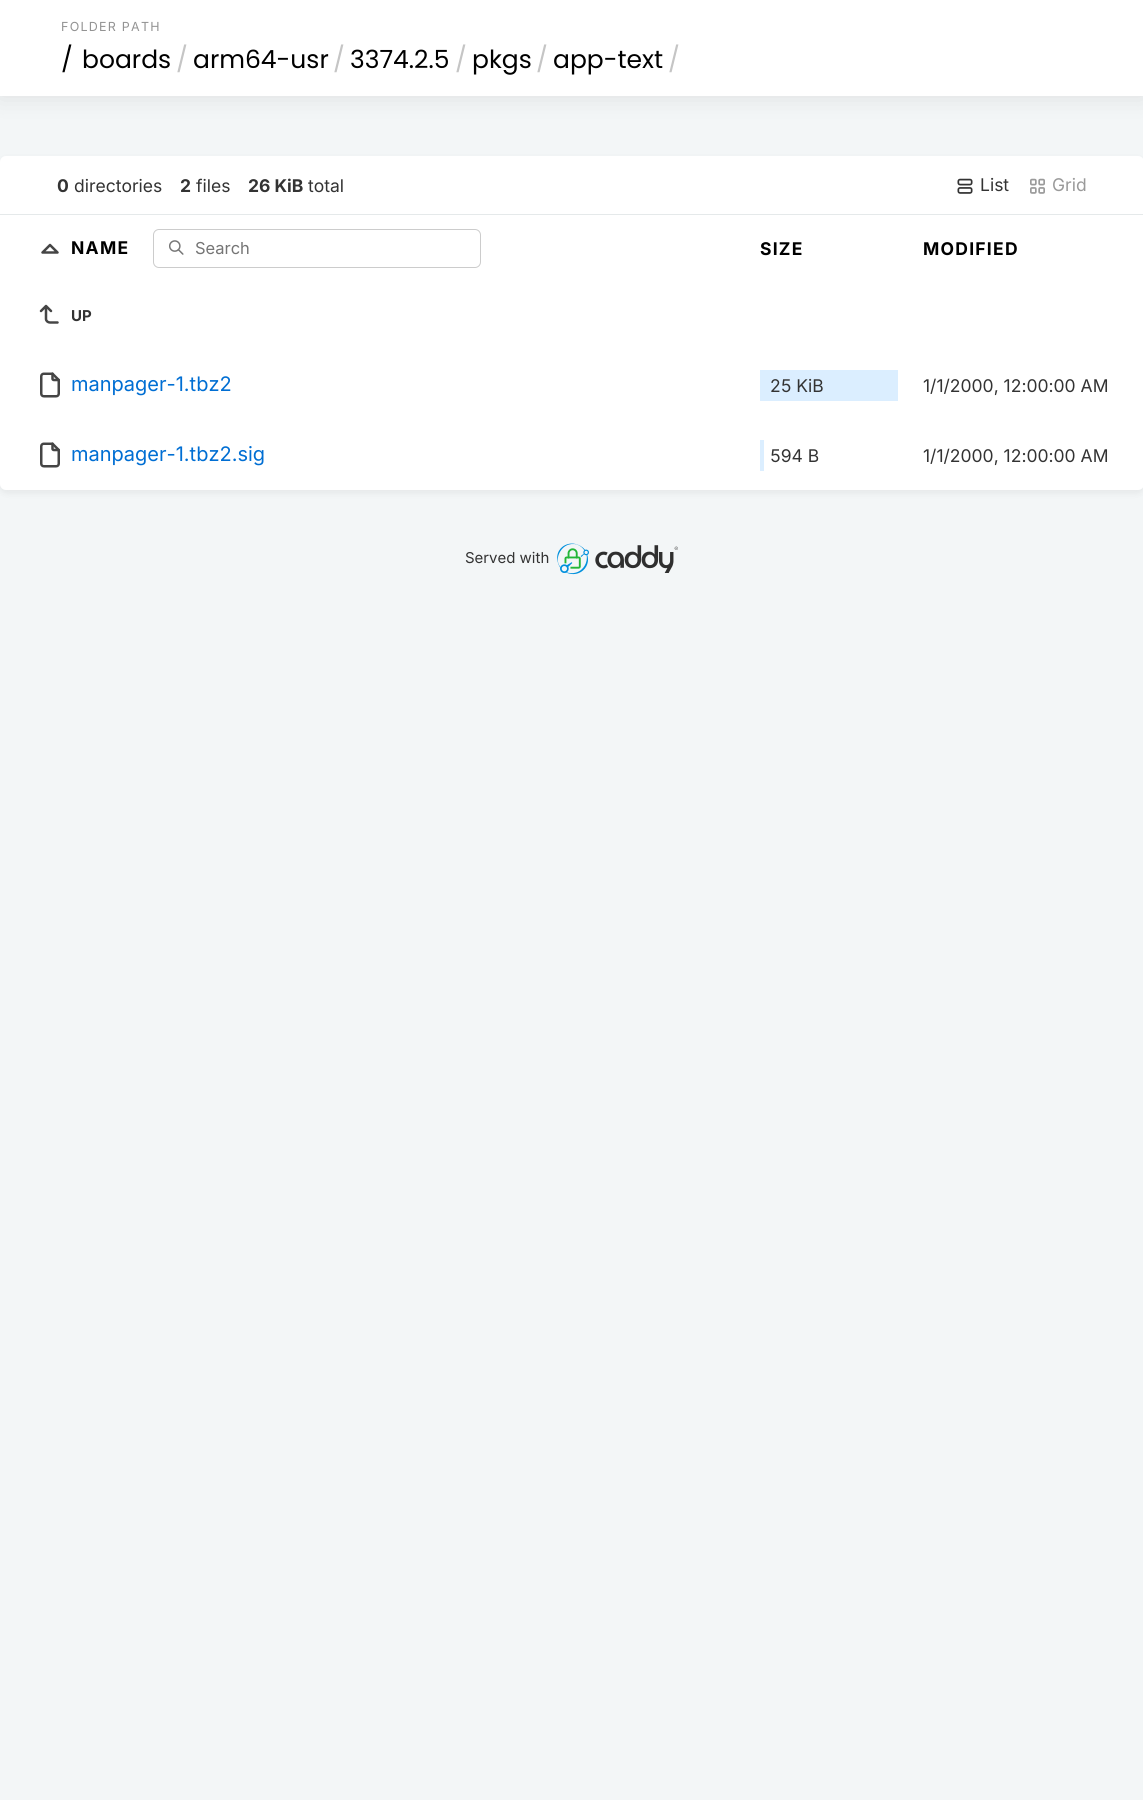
#include <cairo.h>
#include <math.h>
#include <stddef.h>


static void set_color(cairo_t *cr, unsigned color) {
    cairo_set_source_rgb(cr, (color >> 16) / 255.0, (color >> 8 & 255) / 255.0, (color & 255) / 255.0);
}

static void draw_text(cairo_t *cr, double x, double y, const char *s, const char *family, double size, int italic, int bold, unsigned color) {
    cairo_select_font_face(cr, family, italic ? CAIRO_FONT_SLANT_ITALIC : CAIRO_FONT_SLANT_NORMAL,
        bold ? CAIRO_FONT_WEIGHT_BOLD : CAIRO_FONT_WEIGHT_NORMAL);
    cairo_set_font_size(cr, size);
    set_color(cr, color);
    cairo_move_to(cr, x, y);
    cairo_show_text(cr, s);
}

static void draw_spaced(cairo_t *cr, double x, double y, const char *s, double letter, double word) {
    cairo_move_to(cr, x, y);
    while (*s) {
        char ch[5] = {0};
        int n = 0;
        do ch[n++] = *s++; while ((*s & 0xC0) == 0x80);
        cairo_show_text(cr, ch);
        cairo_rel_move_to(cr, letter + word * (*ch == ' '), 0);
    }
}

static void fill_rect(cairo_t *cr, double x, double y, double w, double h, unsigned color) {
    set_color(cr, color);
    cairo_rectangle(cr, x, y, w, h);
    cairo_fill(cr);
}

static void rounded_rect(cairo_t *cr, double x, double y, double w, double h, double r) {
    cairo_new_sub_path(cr);
    cairo_arc(cr, x + w - r, y + h - r, r, 0, M_PI / 2);
    cairo_arc(cr, x + r, y + h - r, r, M_PI / 2, M_PI);
    cairo_arc(cr, x + r, y + r, r, M_PI, 1.5 * M_PI);
    cairo_arc(cr, x + w - r, y + r, r, 1.5 * M_PI, 2 * M_PI);
    cairo_close_path(cr);
}

static void draw_shadow(cairo_t *cr, double x, double y, double w, double h, double r, double blur, double alpha) {
    cairo_push_group_with_content(cr, CAIRO_CONTENT_ALPHA);
    cairo_set_operator(cr, CAIRO_OPERATOR_SOURCE);
    for (int i = 15; i >= -15 && fmin(w, h) + blur * i / 3 > 0; i -= 2) {
        double e = blur * i / 6;
        cairo_set_source_rgba(cr, 0, 0, 0, alpha * erfc((i - 1) / 8.5) / 2);
        rounded_rect(cr, x - e, y - e, w + 2 * e, h + 2 * e, fmax(0, fmin(r + e + blur * .6, fmin(w, h) / 2 + e)));
        cairo_fill(cr);
    }
    cairo_pattern_t *soft = cairo_pop_group(cr);
    cairo_mask(cr, soft);
    cairo_pattern_destroy(soft);
}

static void draw_image(cairo_t *cr, const char *path, double x, double y, double w, double h) {
    cairo_surface_t *image = cairo_image_surface_create_from_png(path);
    cairo_save(cr);
    cairo_set_source_surface(cr, image, x, y);
    cairo_rectangle(cr, x, y, w, h);
    cairo_fill(cr);
    cairo_restore(cr);
    cairo_surface_destroy(image);
}

int main(void) {
    cairo_surface_t *surface = cairo_image_surface_create(CAIRO_FORMAT_RGB24, 1143, 1800);
    cairo_t *cr = cairo_create(surface);
    cairo_font_options_t *options = cairo_font_options_create();
    cairo_font_options_set_hint_metrics(options, CAIRO_HINT_METRICS_OFF);
    cairo_font_options_set_hint_style(options, CAIRO_HINT_STYLE_NONE);
    cairo_set_font_options(cr, options);
    cairo_set_miter_limit(cr, 4);
    set_color(cr, 0xF3F6F7);
    cairo_paint(cr);
    set_color(cr, 0x000000);
    draw_shadow(cr, 0, 0, 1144, 96, 0, 12.5, 0.1);
    fill_rect(cr, 0, 0, 1143, 96, 0xFFFFFF);
    cairo_select_font_face(cr, "Inter", CAIRO_FONT_SLANT_NORMAL, CAIRO_FONT_WEIGHT_NORMAL);
    cairo_set_font_size(cr, 12.5);
    set_color(cr, 0x939393);
    draw_spaced(cr, 61, 31, "FOLDER PATH", 1.25, 0);
    draw_text(cr, 61, 68, "/", "Poppins", 25, 0, 0, 0x000000);
    draw_text(cr, 82, 68, "boards", "Poppins", 25, 0, 0, 0x000000);
    draw_text(cr, 176, 68, "/", "Poppins", 25, 0, 0, 0xC5C5C5);
    draw_text(cr, 193, 68, "arm64-usr", "Poppins", 25, 0, 0, 0x000000);
    draw_text(cr, 333, 68, "/", "Poppins", 25, 0, 0, 0xC5C5C5);
    draw_text(cr, 350, 68, "3374.2.5", "Poppins", 25, 0, 0, 0x000000);
    draw_text(cr, 455, 68, "/", "Poppins", 25, 0, 0, 0xC5C5C5);
    draw_text(cr, 472, 68, "pkgs", "Poppins", 25, 0, 0, 0x000000);
    draw_text(cr, 536, 68, "/", "Poppins", 25, 0, 0, 0xC5C5C5);
    draw_text(cr, 553, 68, "app-text", "Poppins", 25, 0, 0, 0x000000);
    draw_text(cr, 668, 68, "/", "Poppins", 25, 0, 0, 0xC5C5C5);
    set_color(cr, 0x000000);
    draw_shadow(cr, -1, 158, 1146, 336, 8, 3, 0.05);
    set_color(cr, 0xFFFFFF);
    rounded_rect(cr, 0, 156, 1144, 334, 6);
    cairo_fill(cr);
    fill_rect(cr, 0, 214, 1143, 1, 0xE5E9EA);
    draw_text(cr, 57, 192, "0", "Inter", 17.5, 0, 1, 0x333333);
    draw_text(cr, 74, 192, "directories", "Inter", 17.5, 0, 0, 0x333333);
    draw_text(cr, 180, 192, "2", "Inter", 17.5, 0, 1, 0x333333);
    draw_text(cr, 196, 192, "files", "Inter", 17.5, 0, 0, 0x333333);
    draw_text(cr, 248, 192, "26 KiB", "Inter", 17.5, 0, 1, 0x333333);
    draw_text(cr, 308, 192, "total", "Inter", 17.5, 0, 0, 0x333333);
    draw_image(cr, "assets/img1.png", 957, 178, 16, 16);
    draw_text(cr, 980, 191, "List", "Inter", 17.5, 0, 0, 0x333333);
    draw_image(cr, "assets/img2.png", 1030, 178, 15, 16);
    draw_text(cr, 1052, 191, "Grid", "Inter", 17.5, 0, 0, 0x9A9A9A);
    cairo_new_path(cr);
    cairo_move_to(cr, 57.5, 252.5);
    cairo_line_to(cr, 50, 245);
    cairo_line_to(cr, 42.5, 252.5);
    cairo_line_to(cr, 57.5, 252.5);
    set_color(cr, 0x454545);
    cairo_set_line_width(cr, 2.5);
    cairo_set_line_cap(cr, CAIRO_LINE_CAP_ROUND);
    cairo_set_line_join(cr, CAIRO_LINE_JOIN_ROUND);
    cairo_stroke(cr);
    cairo_select_font_face(cr, "Inter", CAIRO_FONT_SLANT_NORMAL, CAIRO_FONT_WEIGHT_BOLD);
    set_color(cr, 0x000000);
    draw_spaced(cr, 71, 254, "NAME", 1.25, 0);
    draw_image(cr, "assets/img3.png", 169, 240, 15, 15);
    rounded_rect(cr, 153.5, 229.5, 327, 38, 5.5);
    set_color(cr, 0xCCCCCC);
    cairo_set_line_width(cr, 1);
    cairo_set_line_cap(cr, CAIRO_LINE_CAP_BUTT);
    cairo_set_line_join(cr, CAIRO_LINE_JOIN_MITER);
    cairo_stroke(cr);
    draw_text(cr, 195, 254, "Search", "Inter", 16.5, 0, 0, 0x757575);
    cairo_select_font_face(cr, "Inter", CAIRO_FONT_SLANT_NORMAL, CAIRO_FONT_WEIGHT_BOLD);
    cairo_set_font_size(cr, 17.5);
    set_color(cr, 0x000000);
    draw_spaced(cr, 760, 255, "SIZE", 1.25, 0);
    draw_spaced(cr, 923, 255, "MODIFIED", 1.25, 0);
    cairo_new_path(cr);
    cairo_move_to(cr, 57.5, 322.5);
    cairo_line_to(cr, 50, 322.5);
    cairo_curve_to(cr, 48, 322.5, 46, 321, 46, 319);
    cairo_line_to(cr, 46, 306);
    cairo_line_to(cr, 41, 311);
    cairo_move_to(cr, 51, 311);
    cairo_line_to(cr, 46, 306);
    set_color(cr, 0x454545);
    cairo_set_line_width(cr, 2.5);
    cairo_set_line_cap(cr, CAIRO_LINE_CAP_ROUND);
    cairo_set_line_join(cr, CAIRO_LINE_JOIN_ROUND);
    cairo_stroke(cr);
    draw_text(cr, 71, 321, "UP", "Inter", 15, 0, 1, 0x333333);
    draw_image(cr, "assets/img4.png", 40, 372, 20, 26);
    draw_text(cr, 71, 391, "manpager-1.tbz2", "Inter", 20, 0, 0, 0x006ED3);
    fill_rect(cr, 760, 370, 138, 31, 0xDBEEFF);
    draw_text(cr, 770, 392, "25 KiB", "Inter", 17.5, 0, 0, 0x333333);
    draw_text(cr, 923, 392, "1/1/2000, 12:00:00 AM", "Inter", 17.5, 0, 0, 0x333333);
    draw_image(cr, "assets/img4.png", 40, 442, 20, 26);
    draw_text(cr, 71, 461, "manpager-1.tbz2.sig", "Inter", 20, 0, 0, 0x006ED3);
    fill_rect(cr, 760, 440, 4, 31, 0xDBEEFF);
    draw_text(cr, 770, 462, "594 B", "Inter", 17.5, 0, 0, 0x333333);
    draw_text(cr, 923, 462, "1/1/2000, 12:00:00 AM", "Inter", 17.5, 0, 0, 0x333333);
    draw_text(cr, 465, 563, "Served with", "Inter", 15, 0, 0, 0x333333);
    draw_image(cr, "assets/img5.png", 557, 543, 121, 32);
    cairo_surface_write_to_png(surface, "output.png");
    cairo_font_options_destroy(options);
    cairo_destroy(cr);
    cairo_surface_destroy(surface);
    return 0;
}
